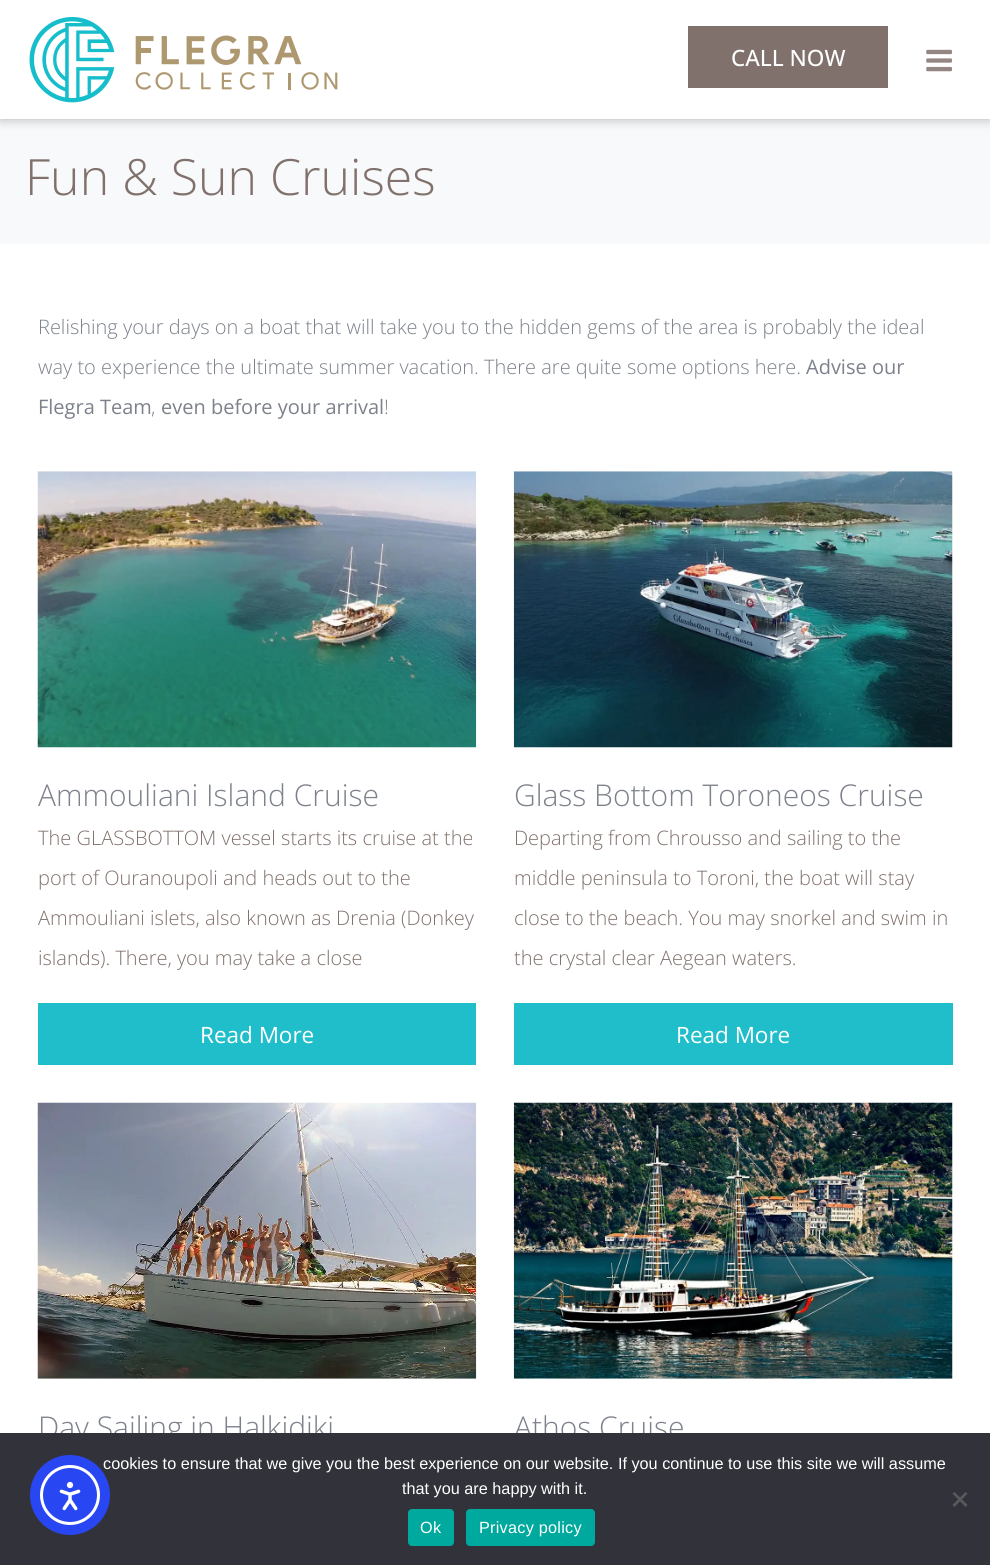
#include <cairo.h>
#include <math.h>
#include <stddef.h>


static void set_color(cairo_t *cr, unsigned color) {
    cairo_set_source_rgb(cr, (color >> 16) / 255.0, (color >> 8 & 255) / 255.0, (color & 255) / 255.0);
}

static void draw_text(cairo_t *cr, double x, double y, const char *s, const char *family, double size, int italic, int bold, unsigned color) {
    cairo_select_font_face(cr, family, italic ? CAIRO_FONT_SLANT_ITALIC : CAIRO_FONT_SLANT_NORMAL,
        bold ? CAIRO_FONT_WEIGHT_BOLD : CAIRO_FONT_WEIGHT_NORMAL);
    cairo_set_font_size(cr, size);
    set_color(cr, color);
    cairo_move_to(cr, x, y);
    cairo_show_text(cr, s);
}

static void draw_spaced(cairo_t *cr, double x, double y, const char *s, double letter, double word) {
    cairo_move_to(cr, x, y);
    while (*s) {
        char ch[5] = {0};
        int n = 0;
        do ch[n++] = *s++; while ((*s & 0xC0) == 0x80);
        cairo_show_text(cr, ch);
        cairo_rel_move_to(cr, letter + word * (*ch == ' '), 0);
    }
}

static void fill_rect(cairo_t *cr, double x, double y, double w, double h, unsigned color) {
    set_color(cr, color);
    cairo_rectangle(cr, x, y, w, h);
    cairo_fill(cr);
}

static void rounded_rect(cairo_t *cr, double x, double y, double w, double h, double r) {
    cairo_new_sub_path(cr);
    cairo_arc(cr, x + w - r, y + h - r, r, 0, M_PI / 2);
    cairo_arc(cr, x + r, y + h - r, r, M_PI / 2, M_PI);
    cairo_arc(cr, x + r, y + r, r, M_PI, 1.5 * M_PI);
    cairo_arc(cr, x + w - r, y + r, r, 1.5 * M_PI, 2 * M_PI);
    cairo_close_path(cr);
}

static void draw_shadow(cairo_t *cr, double x, double y, double w, double h, double r, double blur, double alpha) {
    cairo_push_group_with_content(cr, CAIRO_CONTENT_ALPHA);
    cairo_set_operator(cr, CAIRO_OPERATOR_SOURCE);
    for (int i = 15; i >= -15 && fmin(w, h) + blur * i / 3 > 0; i -= 2) {
        double e = blur * i / 6;
        cairo_set_source_rgba(cr, 0, 0, 0, alpha * erfc((i - 1) / 8.5) / 2);
        rounded_rect(cr, x - e, y - e, w + 2 * e, h + 2 * e, fmax(0, fmin(r + e + blur * .6, fmin(w, h) / 2 + e)));
        cairo_fill(cr);
    }
    cairo_pattern_t *soft = cairo_pop_group(cr);
    cairo_mask(cr, soft);
    cairo_pattern_destroy(soft);
}

static void draw_image(cairo_t *cr, const char *path, double x, double y, double w, double h) {
    cairo_surface_t *image = cairo_image_surface_create_from_png(path);
    cairo_save(cr);
    cairo_set_source_surface(cr, image, x, y);
    cairo_rectangle(cr, x, y, w, h);
    cairo_fill(cr);
    cairo_restore(cr);
    cairo_surface_destroy(image);
}

int main(void) {
    cairo_surface_t *surface = cairo_image_surface_create(CAIRO_FORMAT_RGB24, 990, 1565);
    cairo_t *cr = cairo_create(surface);
    cairo_font_options_t *options = cairo_font_options_create();
    cairo_font_options_set_hint_metrics(options, CAIRO_HINT_METRICS_OFF);
    cairo_font_options_set_hint_style(options, CAIRO_HINT_STYLE_NONE);
    cairo_set_font_options(cr, options);
    cairo_set_miter_limit(cr, 4);
    set_color(cr, 0xFFFFFF);
    cairo_paint(cr);
    fill_rect(cr, 0, 119, 990, 125, 0xF8F9FA);
    set_color(cr, 0x000000);
    draw_shadow(cr, 0, 0, 990, 119, 0, 6, 0.29);
    fill_rect(cr, 0, 0, 990, 119, 0xFFFFFF);
    draw_image(cr, "assets/img1.png", 29, 17, 309, 86);
    fill_rect(cr, 688, 26, 200, 62, 0x81716C);
    draw_text(cr, 731, 66, "CALL NOW", "Open Sans Medium", 22.5, 0, 0, 0xFFFFFF);
    draw_image(cr, "assets/img2.png", 926, 49, 26, 23);
    draw_text(cr, 25, 195, "Fun & Sun Cruises", "Open Sans Light", 50, 0, 0, 0x81716C);
    draw_text(cr, 38, 334, "Relishing your days on a boat that will take you to the hidden gems of the area is probably the ideal", "Open Sans Light", 20, 0, 0, 0x7C818B);
    draw_text(cr, 38, 374, "way to experience the ultimate summer vacation. There are quite some options here.", "Open Sans Light", 20, 0, 0, 0x7C818B);
    draw_text(cr, 806, 374, "Advise our", "Open Sans", 20, 0, 0, 0x7C818B);
    draw_text(cr, 38, 414, "Flegra Team", "Open Sans", 20, 0, 0, 0x7C818B);
    draw_text(cr, 151, 414, ",", "Open Sans Light", 20, 0, 0, 0x7C818B);
    draw_text(cr, 161, 414, "even before your arrival", "Open Sans", 20, 0, 0, 0x7C818B);
    draw_text(cr, 384, 414, "!", "Open Sans Light", 20, 0, 0, 0x7C818B);
    draw_image(cr, "assets/img3.png", 37, 471, 440, 277);
    draw_text(cr, 38, 806, "Ammouliani Island Cruise", "Open Sans Light", 30, 0, 0, 0x7C818B);
    draw_text(cr, 38, 845, "The GLASSBOTTOM vessel starts its cruise at the", "Open Sans Light", 20, 0, 0, 0x81716C);
    draw_text(cr, 38, 885, "port of Ouranoupoli and heads out to the", "Open Sans Light", 20, 0, 0, 0x81716C);
    draw_text(cr, 38, 925, "Ammouliani islets, also known as Drenia (Donkey", "Open Sans Light", 20, 0, 0, 0x81716C);
    draw_text(cr, 38, 965, "islands). There, you may take a close", "Open Sans Light", 20, 0, 0, 0x81716C);
    fill_rect(cr, 38, 1003, 438, 62, 0x20BECB);
    draw_text(cr, 200, 1043, "Read More", "Open Sans", 22.5, 0, 0, 0xFFFFFF);
    draw_image(cr, "assets/img4.png", 513, 471, 440, 277);
    draw_text(cr, 514, 806, "Glass Bottom Toroneos Cruise", "Open Sans Light", 30, 0, 0, 0x7C818B);
    draw_text(cr, 514, 845, "Departing from Chrousso and sailing to the", "Open Sans Light", 20, 0, 0, 0x81716C);
    draw_text(cr, 514, 885, "middle peninsula to Toroni, the boat will stay", "Open Sans Light", 20, 0, 0, 0x81716C);
    draw_text(cr, 514, 925, "close to the beach. You may snorkel and swim in", "Open Sans Light", 20, 0, 0, 0x81716C);
    draw_text(cr, 514, 965, "the crystal clear Aegean waters.", "Open Sans Light", 20, 0, 0, 0x81716C);
    fill_rect(cr, 514, 1003, 439, 62, 0x20BECB);
    draw_text(cr, 676, 1043, "Read More", "Open Sans", 22.5, 0, 0, 0xFFFFFF);
    draw_image(cr, "assets/img5.png", 37, 1102, 440, 277);
    draw_text(cr, 38, 1438, "Day Sailing in Halkidiki", "Open Sans Light", 30, 0, 0, 0x7C818B);
    draw_image(cr, "assets/img6.png", 513, 1102, 440, 277);
    draw_text(cr, 514, 1438, "Athos Cruise", "Open Sans Light", 30, 0, 0, 0x7C818B);
    fill_rect(cr, 0, 1433, 990, 132, 0x32323A);
    draw_text(cr, 103, 1469, "cookies to ensure that we give you the best experience on our website. If you continue to use this site we will assume", "Liberation Sans", 16.25, 0, 0, 0xFFFFFF);
    set_color(cr, 0x2847F3);
    cairo_new_path(cr);
    cairo_arc(cr, 70, 1495, 40, 0, 2 * M_PI);
    cairo_fill(cr);
    cairo_arc(cr, 70, 1495, 28.5, 0, 2 * M_PI);
    set_color(cr, 0xFFFFFF);
    cairo_set_line_width(cr, 3);
    cairo_stroke(cr);
    draw_image(cr, "assets/img7.png", 59, 1481, 22, 30);
    draw_text(cr, 402, 1494, "that you are happy with it.", "Liberation Sans", 16.25, 0, 0, 0xFFFFFF);
    set_color(cr, 0x59595D);
    cairo_new_path(cr);
    cairo_move_to(cr, 965.5, 1492);
    cairo_line_to(cr, 967.5, 1493.5);
    cairo_line_to(cr, 954.5, 1507);
    cairo_line_to(cr, 952.5, 1505);
    cairo_close_path(cr);
    cairo_fill(cr);
    cairo_new_path(cr);
    cairo_move_to(cr, 952.5, 1493.5);
    cairo_line_to(cr, 954.5, 1492);
    cairo_line_to(cr, 967.5, 1505);
    cairo_line_to(cr, 965.5, 1507);
    cairo_close_path(cr);
    cairo_fill(cr);
    set_color(cr, 0x00A99D);
    rounded_rect(cr, 408, 1509, 46, 37, 4);
    cairo_fill(cr);
    set_color(cr, 0xFFFFFF);
    draw_spaced(cr, 420, 1533, "Ok", 0.25, 0);
    set_color(cr, 0x00A99D);
    rounded_rect(cr, 466, 1509, 129, 37, 4);
    cairo_fill(cr);
    set_color(cr, 0xFFFFFF);
    draw_spaced(cr, 479, 1533, "Privacy policy", 0.25, 0);
    cairo_surface_write_to_png(surface, "output.png");
    cairo_font_options_destroy(options);
    cairo_destroy(cr);
    cairo_surface_destroy(surface);
    return 0;
}
